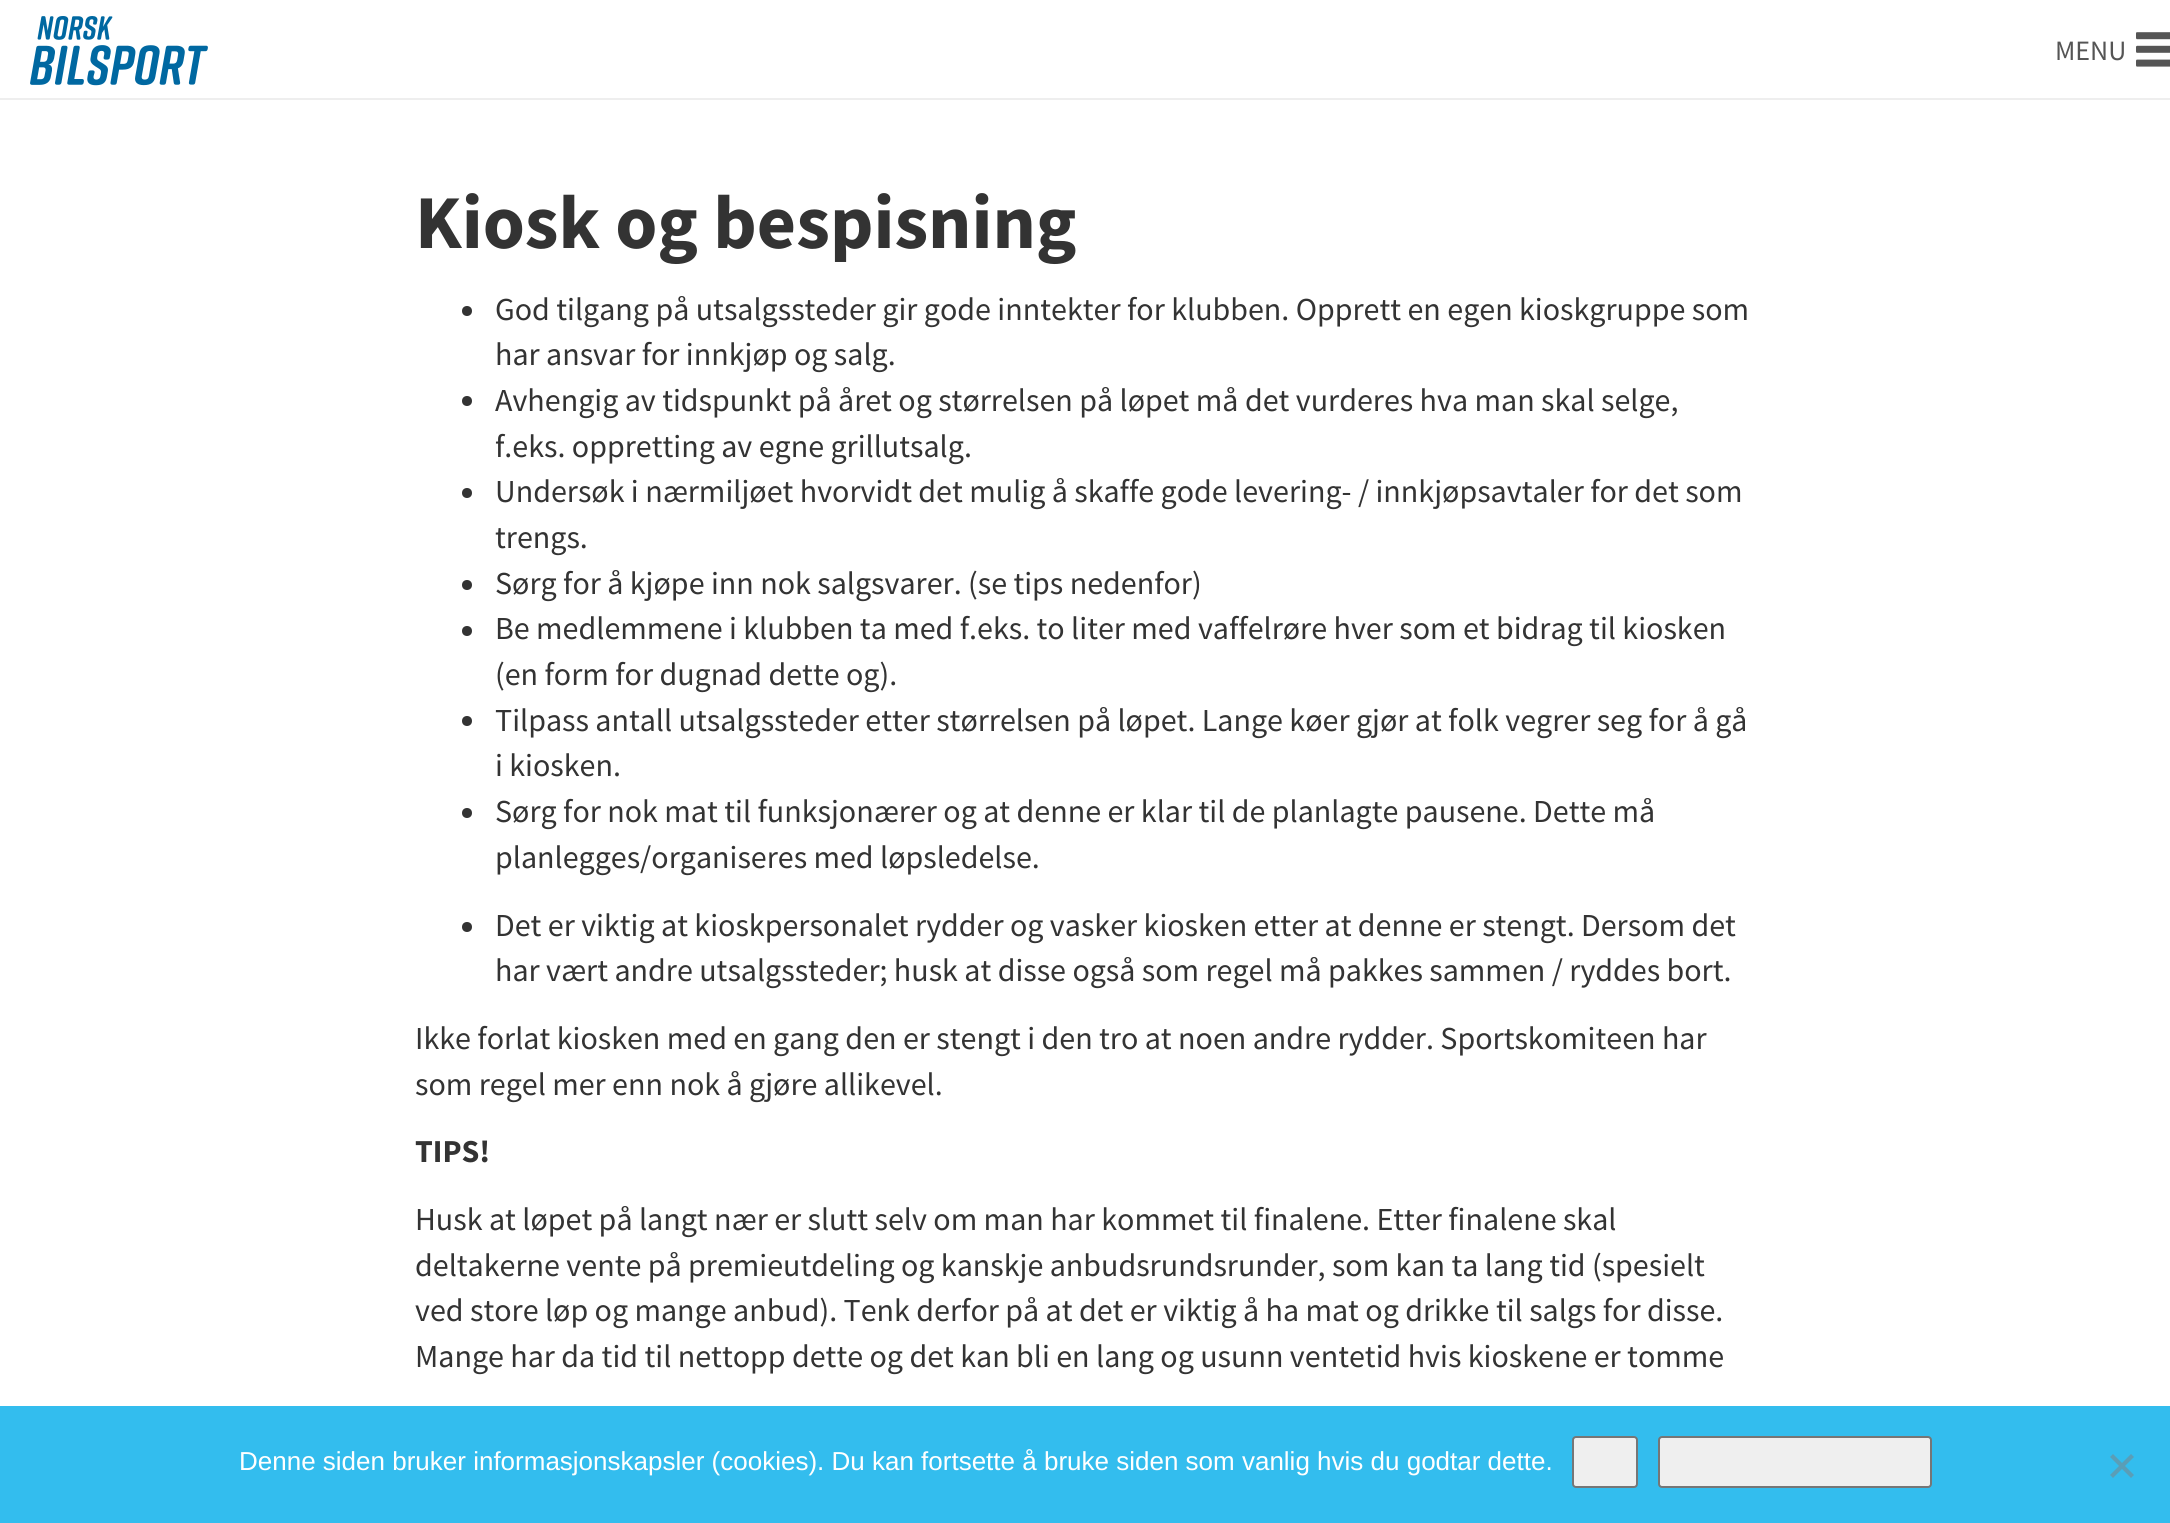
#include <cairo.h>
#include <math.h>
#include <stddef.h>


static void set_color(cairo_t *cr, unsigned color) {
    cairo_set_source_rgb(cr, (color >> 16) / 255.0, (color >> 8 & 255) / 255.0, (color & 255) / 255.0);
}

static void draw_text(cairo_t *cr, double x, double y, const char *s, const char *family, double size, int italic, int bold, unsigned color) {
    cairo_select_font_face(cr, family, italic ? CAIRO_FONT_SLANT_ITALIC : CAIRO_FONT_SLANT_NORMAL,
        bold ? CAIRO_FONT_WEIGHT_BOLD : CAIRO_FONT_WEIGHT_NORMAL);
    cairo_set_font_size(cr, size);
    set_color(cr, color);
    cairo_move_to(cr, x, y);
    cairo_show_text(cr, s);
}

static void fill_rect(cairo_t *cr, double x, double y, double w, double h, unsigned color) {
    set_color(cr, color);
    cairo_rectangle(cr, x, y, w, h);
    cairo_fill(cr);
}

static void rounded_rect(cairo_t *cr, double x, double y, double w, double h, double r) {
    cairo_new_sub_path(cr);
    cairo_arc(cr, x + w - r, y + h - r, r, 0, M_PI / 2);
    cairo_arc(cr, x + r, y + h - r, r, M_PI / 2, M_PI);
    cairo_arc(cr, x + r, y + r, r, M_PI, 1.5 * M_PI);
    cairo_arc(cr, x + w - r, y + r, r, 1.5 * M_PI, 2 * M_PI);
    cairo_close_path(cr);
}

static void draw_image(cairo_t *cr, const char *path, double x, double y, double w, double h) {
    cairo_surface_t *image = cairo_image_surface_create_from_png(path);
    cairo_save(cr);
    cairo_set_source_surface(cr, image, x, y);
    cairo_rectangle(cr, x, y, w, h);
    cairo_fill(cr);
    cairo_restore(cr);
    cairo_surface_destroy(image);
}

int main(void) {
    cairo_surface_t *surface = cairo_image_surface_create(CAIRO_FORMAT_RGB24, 2170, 1523);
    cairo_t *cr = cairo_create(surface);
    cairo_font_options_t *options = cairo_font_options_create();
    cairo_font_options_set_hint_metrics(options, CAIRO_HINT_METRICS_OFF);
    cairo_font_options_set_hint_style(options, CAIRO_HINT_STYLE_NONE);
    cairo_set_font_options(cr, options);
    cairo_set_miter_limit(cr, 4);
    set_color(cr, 0xFFFFFF);
    cairo_paint(cr);
    fill_rect(cr, 0, 98, 2170, 2, 0xEEEEEE);
    draw_image(cr, "assets/img1.png", 30, 16, 178, 70);
    draw_text(cr, 2055, 60, "MENU", "Source Sans Pro", 28, 0, 0, 0x555555);
    draw_image(cr, "assets/img2.png", 2136, 32, 34, 35);
    draw_text(cr, 415, 248, "Kiosk og bespisning", "Source Sans Pro", 76, 0, 1, 0x333333);
    cairo_new_path(cr);
    cairo_arc(cr, 467, 311, 5, 0, 2 * M_PI);
    cairo_fill(cr);
    draw_text(cr, 495, 320, "God tilgang på utsalgssteder gir gode inntekter for klubben. Opprett en egen kioskgruppe som", "Source Sans Pro", 32, 0, 0, 0x333333);
    draw_text(cr, 495, 365, "har ansvar for innkjøp og salg.", "Source Sans Pro", 32, 0, 0, 0x333333);
    cairo_new_path(cr);
    cairo_arc(cr, 467, 401, 5, 0, 2 * M_PI);
    cairo_fill(cr);
    draw_text(cr, 495, 411, "Avhengig av tidspunkt på året og størrelsen på løpet må det vurderes hva man skal selge,", "Source Sans Pro", 32, 0, 0, 0x333333);
    draw_text(cr, 495, 457, "f.eks. oppretting av egne grillutsalg.", "Source Sans Pro", 32, 0, 0, 0x333333);
    cairo_new_path(cr);
    cairo_arc(cr, 467, 493, 5, 0, 2 * M_PI);
    cairo_fill(cr);
    draw_text(cr, 495, 502, "Undersøk i nærmiljøet hvorvidt det mulig å skaffe gode levering- / innkjøpsavtaler for det som", "Source Sans Pro", 32, 0, 0, 0x333333);
    draw_text(cr, 495, 548, "trengs.", "Source Sans Pro", 32, 0, 0, 0x333333);
    cairo_new_path(cr);
    cairo_arc(cr, 467, 585, 5, 0, 2 * M_PI);
    cairo_fill(cr);
    draw_text(cr, 495, 594, "Sørg for å kjøpe inn nok salgsvarer. (se tips nedenfor)", "Source Sans Pro", 32, 0, 0, 0x333333);
    cairo_new_path(cr);
    cairo_arc(cr, 467, 631, 5, 0, 2 * M_PI);
    cairo_fill(cr);
    draw_text(cr, 495, 639, "Be medlemmene i klubben ta med f.eks. to liter med vaffelrøre hver som et bidrag til kiosken", "Source Sans Pro", 32, 0, 0, 0x333333);
    draw_text(cr, 495, 685, "(en form for dugnad dette og).", "Source Sans Pro", 32, 0, 0, 0x333333);
    cairo_new_path(cr);
    cairo_arc(cr, 467, 721, 5, 0, 2 * M_PI);
    cairo_fill(cr);
    draw_text(cr, 495, 731, "Tilpass antall utsalgssteder etter størrelsen på løpet. Lange køer gjør at folk vegrer seg for å gå", "Source Sans Pro", 32, 0, 0, 0x333333);
    draw_text(cr, 495, 776, "i kiosken.", "Source Sans Pro", 32, 0, 0, 0x333333);
    cairo_new_path(cr);
    cairo_arc(cr, 467, 813, 5, 0, 2 * M_PI);
    cairo_fill(cr);
    draw_text(cr, 495, 822, "Sørg for nok mat til funksjonærer og at denne er klar til de planlagte pausene. Dette må", "Source Sans Pro", 32, 0, 0, 0x333333);
    draw_text(cr, 495, 868, "planlegges/organiseres med løpsledelse.", "Source Sans Pro", 32, 0, 0, 0x333333);
    cairo_new_path(cr);
    cairo_arc(cr, 467, 927, 5, 0, 2 * M_PI);
    cairo_fill(cr);
    draw_text(cr, 495, 936, "Det er viktig at kioskpersonalet rydder og vasker kiosken etter at denne er stengt. Dersom det", "Source Sans Pro", 32, 0, 0, 0x333333);
    draw_text(cr, 495, 981, "har vært andre utsalgssteder; husk at disse også som regel må pakkes sammen / ryddes bort.", "Source Sans Pro", 32, 0, 0, 0x333333);
    draw_text(cr, 415, 1049, "Ikke forlat kiosken med en gang den er stengt i den tro at noen andre rydder. Sportskomiteen har", "Source Sans Pro", 32, 0, 0, 0x333333);
    draw_text(cr, 415, 1095, "som regel mer enn nok å gjøre allikevel.", "Source Sans Pro", 32, 0, 0, 0x333333);
    draw_text(cr, 415, 1162, "TIPS!", "Source Sans Pro", 32, 0, 1, 0x333333);
    draw_text(cr, 415, 1230, "Husk at løpet på langt nær er slutt selv om man har kommet til finalene. Etter finalene skal", "Source Sans Pro", 32, 0, 0, 0x333333);
    draw_text(cr, 415, 1276, "deltakerne vente på premieutdeling og kanskje anbudsrundsrunder, som kan ta lang tid (spesielt", "Source Sans Pro", 32, 0, 0, 0x333333);
    draw_text(cr, 415, 1321, "ved store løp og mange anbud). Tenk derfor på at det er viktig å ha mat og drikke til salgs for disse.", "Source Sans Pro", 32, 0, 0, 0x333333);
    draw_text(cr, 415, 1367, "Mange har da tid til nettopp dette og det kan bli en lang og usunn ventetid hvis kioskene er tomme", "Source Sans Pro", 32, 0, 0, 0x333333);
    cairo_set_source_rgba(cr, 0, 0.675, 0.914, 0.8);
    cairo_rectangle(cr, 0, 1406, 2170, 117);
    cairo_fill(cr);
    draw_text(cr, 239, 1470, "Denne siden bruker informasjonskapsler (cookies). Du kan fortsette å bruke siden som vanlig hvis du godtar dette.", "Liberation Sans", 26, 0, 0, 0xFFFFFF);
    set_color(cr, 0xEFEFEF);
    rounded_rect(cr, 1573, 1437, 64, 50, 3);
    cairo_fill_preserve(cr);
    set_color(cr, 0x767676);
    cairo_stroke(cr);
    set_color(cr, 0xEFEFEF);
    rounded_rect(cr, 1659, 1437, 272, 50, 3);
    cairo_fill_preserve(cr);
    set_color(cr, 0x767676);
    cairo_stroke(cr);
    set_color(cr, 0x5A9EB7);
    cairo_new_path(cr);
    cairo_move_to(cr, 2131, 1454);
    cairo_line_to(cr, 2134, 1457);
    cairo_line_to(cr, 2113, 1478);
    cairo_line_to(cr, 2110, 1475);
    cairo_close_path(cr);
    cairo_fill(cr);
    cairo_new_path(cr);
    cairo_move_to(cr, 2110, 1457);
    cairo_line_to(cr, 2113, 1454);
    cairo_line_to(cr, 2134, 1475);
    cairo_line_to(cr, 2131, 1478);
    cairo_close_path(cr);
    cairo_fill(cr);
    cairo_surface_write_to_png(surface, "output.png");
    cairo_font_options_destroy(options);
    cairo_destroy(cr);
    cairo_surface_destroy(surface);
    return 0;
}
